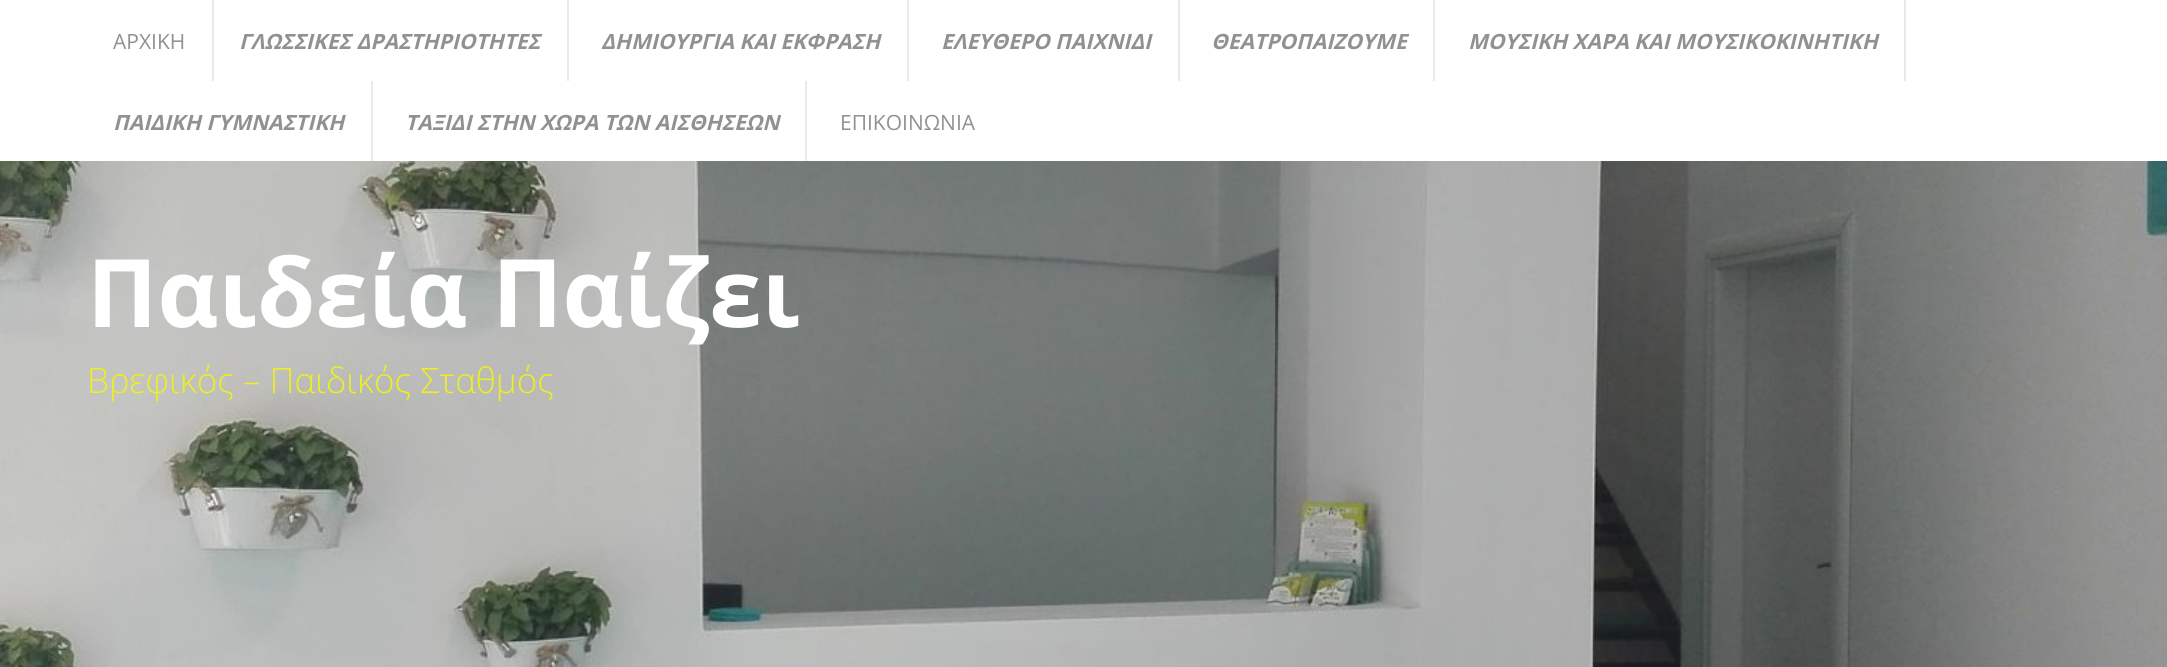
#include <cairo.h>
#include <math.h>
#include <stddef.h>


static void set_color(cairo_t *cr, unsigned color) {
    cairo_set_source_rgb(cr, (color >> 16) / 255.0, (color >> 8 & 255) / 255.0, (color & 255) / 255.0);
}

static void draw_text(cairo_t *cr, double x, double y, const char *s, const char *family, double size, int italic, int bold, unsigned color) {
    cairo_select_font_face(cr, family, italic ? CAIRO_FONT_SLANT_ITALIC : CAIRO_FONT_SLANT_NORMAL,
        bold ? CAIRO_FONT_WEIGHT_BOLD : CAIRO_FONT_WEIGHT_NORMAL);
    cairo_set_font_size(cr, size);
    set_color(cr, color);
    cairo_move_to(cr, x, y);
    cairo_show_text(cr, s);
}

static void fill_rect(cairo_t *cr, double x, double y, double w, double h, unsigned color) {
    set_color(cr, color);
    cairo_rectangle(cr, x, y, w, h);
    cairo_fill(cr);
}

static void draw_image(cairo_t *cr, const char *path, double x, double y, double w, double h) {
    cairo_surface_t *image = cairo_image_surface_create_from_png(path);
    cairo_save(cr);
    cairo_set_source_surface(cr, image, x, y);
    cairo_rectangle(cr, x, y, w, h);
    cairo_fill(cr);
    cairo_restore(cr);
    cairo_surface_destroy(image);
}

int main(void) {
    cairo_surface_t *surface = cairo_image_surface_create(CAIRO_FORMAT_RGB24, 2167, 667);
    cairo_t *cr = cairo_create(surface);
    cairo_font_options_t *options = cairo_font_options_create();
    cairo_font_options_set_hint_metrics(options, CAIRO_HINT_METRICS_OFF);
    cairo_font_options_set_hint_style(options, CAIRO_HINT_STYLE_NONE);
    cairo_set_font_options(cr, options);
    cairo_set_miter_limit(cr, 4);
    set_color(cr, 0xFFFFFF);
    cairo_paint(cr);
    fill_rect(cr, 212, 0, 2, 81, 0xEAEAEA);
    draw_text(cr, 113, 49, "ΑΡΧΙΚΗ", "Open Sans", 21, 0, 0, 0x919191);
    fill_rect(cr, 567, 0, 2, 81, 0xEAEAEA);
    draw_text(cr, 239, 49, "ΓΛΩΣΣΙΚΕΣ ΔΡΑΣΤΗΡΙΟΤΗΤΕΣ", "Open Sans", 21, 1, 1, 0x919191);
    fill_rect(cr, 907, 0, 2, 81, 0xEAEAEA);
    draw_text(cr, 601, 49, "ΔΗΜΙΟΥΡΓΙΑ ΚΑΙ ΕΚΦΡΑΣΗ", "Open Sans", 21, 1, 1, 0x919191);
    fill_rect(cr, 1178, 0, 2, 81, 0xEAEAEA);
    draw_text(cr, 941, 49, "ΕΛΕΥΘΕΡΟ ΠΑΙΧΝΙΔΙ", "Open Sans", 21, 1, 1, 0x919191);
    fill_rect(cr, 1433, 0, 2, 81, 0xEAEAEA);
    draw_text(cr, 1211, 49, "ΘΕΑΤΡΟΠΑΙΖΟΥΜΕ", "Open Sans", 21, 1, 1, 0x919191);
    fill_rect(cr, 1904, 0, 2, 81, 0xEAEAEA);
    draw_text(cr, 1468, 49, "ΜΟΥΣΙΚΗ ΧΑΡΑ ΚΑΙ ΜΟΥΣΙΚΟΚΙΝΗΤΙΚΗ", "Open Sans", 21, 1, 1, 0x919191);
    fill_rect(cr, 371, 81, 2, 80, 0xEAEAEA);
    draw_text(cr, 113, 130, "ΠΑΙΔΙΚΗ ΓΥΜΝΑΣΤΙΚΗ", "Open Sans", 21, 1, 1, 0x919191);
    fill_rect(cr, 805, 81, 2, 80, 0xEAEAEA);
    draw_text(cr, 405, 130, "ΤΑΞΙΔΙ ΣΤΗΝ ΧΩΡΑ ΤΩΝ ΑΙΣΘΗΣΕΩΝ", "Open Sans", 21, 1, 1, 0x919191);
    draw_text(cr, 840, 130, "ΕΠΙΚΟΙΝΩΝΙΑ", "Open Sans", 21, 0, 0, 0x919191);
    draw_image(cr, "assets/img1.png", 0, 161, 2167, 506);
    draw_text(cr, 87, 327, "Παιδεία Παίζει", "Open Sans", 94.5, 0, 1, 0xFFFFFF);
    draw_text(cr, 87, 393, "Βρεφικός – Παιδικός Σταθμός", "Open Sans Light", 35, 0, 0, 0xEEEE22);
    cairo_surface_write_to_png(surface, "output.png");
    cairo_font_options_destroy(options);
    cairo_destroy(cr);
    cairo_surface_destroy(surface);
    return 0;
}
